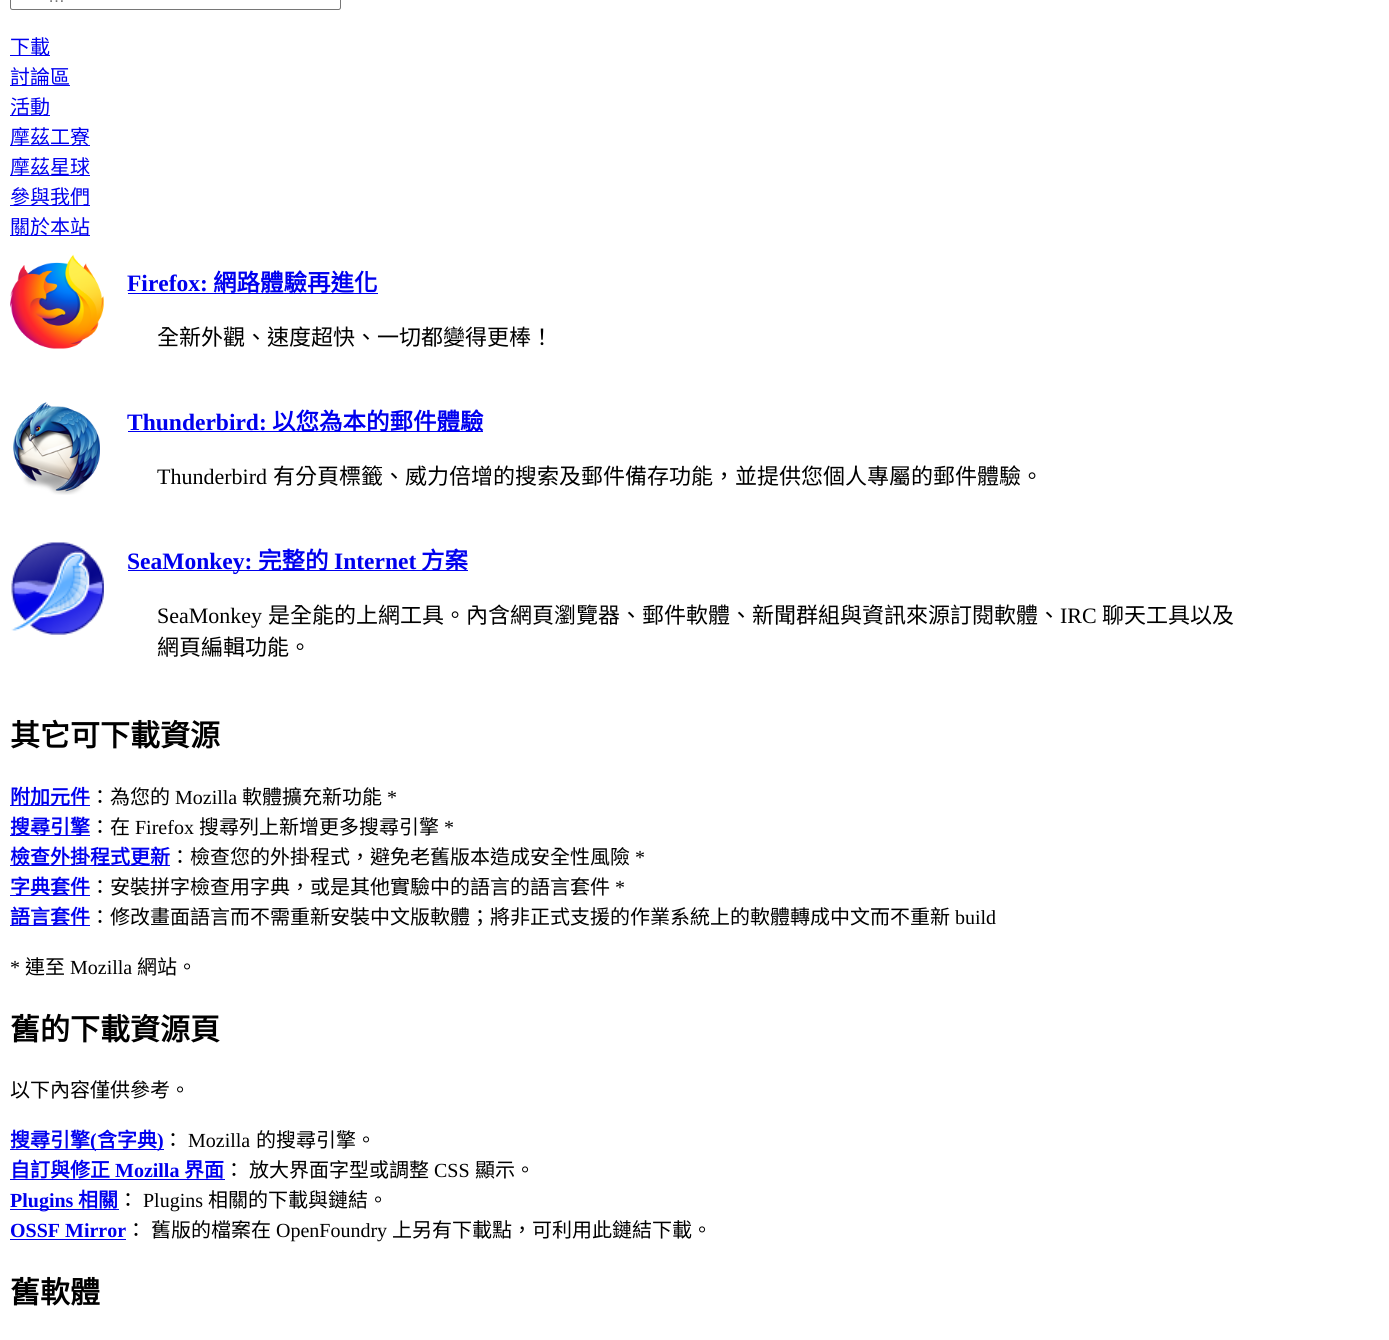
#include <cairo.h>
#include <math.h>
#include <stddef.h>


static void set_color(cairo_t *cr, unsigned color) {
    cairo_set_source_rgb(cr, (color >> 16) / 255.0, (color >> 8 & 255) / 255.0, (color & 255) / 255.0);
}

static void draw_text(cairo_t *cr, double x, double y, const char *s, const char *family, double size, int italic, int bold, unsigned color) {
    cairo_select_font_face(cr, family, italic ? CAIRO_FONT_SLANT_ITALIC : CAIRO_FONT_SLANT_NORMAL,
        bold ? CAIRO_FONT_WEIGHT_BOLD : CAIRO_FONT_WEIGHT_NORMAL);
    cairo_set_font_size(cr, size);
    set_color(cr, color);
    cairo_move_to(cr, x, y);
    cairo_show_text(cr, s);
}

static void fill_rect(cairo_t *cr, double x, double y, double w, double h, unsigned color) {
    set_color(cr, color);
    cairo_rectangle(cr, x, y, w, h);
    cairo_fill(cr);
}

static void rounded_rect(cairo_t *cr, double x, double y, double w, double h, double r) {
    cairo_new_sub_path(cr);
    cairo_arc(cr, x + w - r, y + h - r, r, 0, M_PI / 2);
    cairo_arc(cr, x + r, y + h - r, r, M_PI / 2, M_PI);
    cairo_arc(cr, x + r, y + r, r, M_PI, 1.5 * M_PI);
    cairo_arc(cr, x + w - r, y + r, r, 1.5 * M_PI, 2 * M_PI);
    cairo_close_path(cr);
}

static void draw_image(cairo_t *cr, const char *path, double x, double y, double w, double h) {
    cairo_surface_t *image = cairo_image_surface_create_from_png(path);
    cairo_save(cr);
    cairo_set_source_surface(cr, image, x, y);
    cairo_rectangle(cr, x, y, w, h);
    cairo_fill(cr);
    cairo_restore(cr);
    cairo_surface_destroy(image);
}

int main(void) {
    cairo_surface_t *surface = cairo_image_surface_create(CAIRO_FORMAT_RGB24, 1389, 1340);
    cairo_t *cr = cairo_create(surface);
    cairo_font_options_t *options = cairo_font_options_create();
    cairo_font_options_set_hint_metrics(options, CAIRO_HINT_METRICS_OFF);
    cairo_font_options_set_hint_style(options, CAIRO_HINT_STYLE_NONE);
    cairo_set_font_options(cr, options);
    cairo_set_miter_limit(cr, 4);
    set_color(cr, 0xFFFFFF);
    cairo_paint(cr);
    rounded_rect(cr, 10.5, -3.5, 330, 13, 2);
    set_color(cr, 0x767676);
    cairo_set_line_width(cr, 1);
    cairo_stroke(cr);
    draw_text(cr, 48, 2, "…", "Liberation Sans", 17, 0, 0, 0x757575);
    fill_rect(cr, 10, 55, 40, 1, 0x0000EE);
    draw_text(cr, 10, 54, "下載", "Noto Sans CJK TC", 20, 0, 0, 0x0000EE);
    fill_rect(cr, 10, 85, 60, 1, 0x0000EE);
    draw_text(cr, 10, 84, "討論區", "Noto Sans CJK TC", 20, 0, 0, 0x0000EE);
    fill_rect(cr, 10, 115, 40, 1, 0x0000EE);
    draw_text(cr, 10, 114, "活動", "Noto Sans CJK TC", 20, 0, 0, 0x0000EE);
    fill_rect(cr, 10, 145, 80, 1, 0x0000EE);
    draw_text(cr, 10, 144, "摩茲工寮", "Noto Sans CJK TC", 20, 0, 0, 0x0000EE);
    fill_rect(cr, 10, 175, 80, 1, 0x0000EE);
    draw_text(cr, 10, 174, "摩茲星球", "Noto Sans CJK TC", 20, 0, 0, 0x0000EE);
    fill_rect(cr, 10, 205, 80, 1, 0x0000EE);
    draw_text(cr, 10, 204, "參與我們", "Noto Sans CJK TC", 20, 0, 0, 0x0000EE);
    fill_rect(cr, 10, 235, 80, 1, 0x0000EE);
    draw_text(cr, 10, 234, "關於本站", "Noto Sans CJK TC", 20, 0, 0, 0x0000EE);
    draw_image(cr, "assets/img1.png", 10, 254, 94, 95);
    draw_text(cr, 127, 291, "Firefox:", "Liberation Serif", 23.5, 0, 1, 0x0000EE);
    fill_rect(cr, 128, 293, 250, 1, 0x0000EE);
    draw_text(cr, 213, 291, "網路體驗再進化", "Noto Sans CJK TC", 23.5, 0, 1, 0x0000EE);
    draw_text(cr, 157, 345, "全新外觀、速度超快、一切都變得更棒！", "Noto Sans CJK TC", 22, 0, 0, 0x000000);
    draw_image(cr, "assets/img2.png", 13, 402, 87, 93);
    draw_text(cr, 127, 430, "Thunderbird:", "Liberation Serif", 23.5, 0, 1, 0x0000EE);
    fill_rect(cr, 128, 431, 355, 1, 0x0000EE);
    draw_text(cr, 272, 430, "以您為本的郵件體驗", "Noto Sans CJK TC", 23.5, 0, 1, 0x0000EE);
    draw_text(cr, 157, 484, "Thunderbird", "Liberation Serif", 22, 0, 0, 0x000000);
    draw_text(cr, 273, 484, "有分頁標籤、威力倍增的搜索及郵件備存功能，並提供您個人專屬的郵件體驗。", "Noto Sans CJK TC", 22, 0, 0, 0x000000);
    draw_image(cr, "assets/img3.png", 11, 542, 93, 93);
    fill_rect(cr, 128, 570, 340, 1, 0x0000EE);
    draw_text(cr, 127, 569, "SeaMonkey:", "Liberation Serif", 23.5, 0, 1, 0x0000EE);
    draw_text(cr, 258, 569, "完整的", "Noto Sans CJK TC", 23.5, 0, 1, 0x0000EE);
    draw_text(cr, 334, 569, "Internet", "Liberation Serif", 23.5, 0, 1, 0x0000EE);
    draw_text(cr, 421, 569, "方案", "Noto Sans CJK TC", 23.5, 0, 1, 0x0000EE);
    draw_text(cr, 157, 623, "SeaMonkey", "Liberation Serif", 22, 0, 0, 0x000000);
    draw_text(cr, 268, 623, "是全能的上網工具。內含網頁瀏覽器、郵件軟體、新聞群組與資訊來源訂閱軟體、", "Noto Sans CJK TC", 22, 0, 0, 0x000000);
    draw_text(cr, 1060, 623, "IRC", "Liberation Serif", 22, 0, 0, 0x000000);
    draw_text(cr, 1102, 623, "聊天工具以及", "Noto Sans CJK TC", 22, 0, 0, 0x000000);
    draw_text(cr, 157, 655, "網頁編輯功能。", "Noto Sans CJK TC", 22, 0, 0, 0x000000);
    draw_text(cr, 10, 746, "其它可下載資源", "Noto Sans CJK TC", 30, 0, 1, 0x000000);
    fill_rect(cr, 10, 805, 80, 1, 0x0000EE);
    draw_text(cr, 10, 804, "附加元件", "Noto Sans CJK TC", 20, 0, 1, 0x0000EE);
    draw_text(cr, 90, 804, "：為您的", "Noto Sans CJK TC", 20, 0, 0, 0x000000);
    draw_text(cr, 175, 804, "Mozilla", "Liberation Serif", 20, 0, 0, 0x000000);
    draw_text(cr, 242, 804, "軟體擴充新功能", "Noto Sans CJK TC", 20, 0, 0, 0x000000);
    draw_text(cr, 387, 804, "*", "Liberation Serif", 20, 0, 0, 0x000000);
    fill_rect(cr, 10, 835, 80, 1, 0x0000EE);
    draw_text(cr, 10, 834, "搜尋引擎", "Noto Sans CJK TC", 20, 0, 1, 0x0000EE);
    draw_text(cr, 90, 834, "：在", "Noto Sans CJK TC", 20, 0, 0, 0x000000);
    draw_text(cr, 135, 834, "Firefox", "Liberation Serif", 20, 0, 0, 0x000000);
    draw_text(cr, 199, 834, "搜尋列上新增更多搜尋引擎", "Noto Sans CJK TC", 20, 0, 0, 0x000000);
    draw_text(cr, 444, 834, "*", "Liberation Serif", 20, 0, 0, 0x000000);
    fill_rect(cr, 10, 865, 160, 1, 0x0000EE);
    draw_text(cr, 10, 864, "檢查外掛程式更新", "Noto Sans CJK TC", 20, 0, 1, 0x0000EE);
    draw_text(cr, 170, 864, "：檢查您的外掛程式，避免老舊版本造成安全性風險", "Noto Sans CJK TC", 20, 0, 0, 0x000000);
    draw_text(cr, 635, 864, "*", "Liberation Serif", 20, 0, 0, 0x000000);
    fill_rect(cr, 10, 895, 80, 1, 0x0000EE);
    draw_text(cr, 10, 894, "字典套件", "Noto Sans CJK TC", 20, 0, 1, 0x0000EE);
    draw_text(cr, 90, 894, "：安裝拼字檢查用字典，或是其他實驗中的語言的語言套件", "Noto Sans CJK TC", 20, 0, 0, 0x000000);
    draw_text(cr, 615, 894, "*", "Liberation Serif", 20, 0, 0, 0x000000);
    fill_rect(cr, 10, 925, 80, 1, 0x0000EE);
    draw_text(cr, 10, 924, "語言套件", "Noto Sans CJK TC", 20, 0, 1, 0x0000EE);
    draw_text(cr, 90, 924, "：修改畫面語言而不需重新安裝中文版軟體；將非正式支援的作業系統上的軟體轉成中文而不重新", "Noto Sans CJK TC", 20, 0, 0, 0x000000);
    draw_text(cr, 955, 924, "build", "Liberation Serif", 20, 0, 0, 0x000000);
    draw_text(cr, 10, 974, "*", "Liberation Serif", 20, 0, 0, 0x000000);
    draw_text(cr, 25, 974, "連至", "Noto Sans CJK TC", 20, 0, 0, 0x000000);
    draw_text(cr, 70, 974, "Mozilla", "Liberation Serif", 20, 0, 0, 0x000000);
    draw_text(cr, 137, 974, "網站。", "Noto Sans CJK TC", 20, 0, 0, 0x000000);
    draw_text(cr, 10, 1040, "舊的下載資源頁", "Noto Sans CJK TC", 30, 0, 1, 0x000000);
    draw_text(cr, 10, 1097, "以下內容僅供參考。", "Noto Sans CJK TC", 20, 0, 0, 0x000000);
    draw_text(cr, 10, 1147, "搜尋引擎", "Noto Sans CJK TC", 20, 0, 1, 0x0000EE);
    fill_rect(cr, 10, 1149, 154, 1, 0x0000EE);
    draw_text(cr, 90, 1147, "(", "Liberation Serif", 20, 0, 1, 0x0000EE);
    draw_text(cr, 97, 1147, "含字典", "Noto Sans CJK TC", 20, 0, 1, 0x0000EE);
    draw_text(cr, 157, 1147, ")", "Liberation Serif", 20, 0, 1, 0x0000EE);
    draw_text(cr, 163, 1147, "：", "Noto Sans CJK TC", 20, 0, 0, 0x000000);
    draw_text(cr, 188, 1147, "Mozilla", "Liberation Serif", 20, 0, 0, 0x000000);
    draw_text(cr, 256, 1147, "的搜尋引擎。", "Noto Sans CJK TC", 20, 0, 0, 0x000000);
    draw_text(cr, 10, 1177, "自訂與修正", "Noto Sans CJK TC", 20, 0, 1, 0x0000EE);
    draw_text(cr, 115, 1177, "Mozilla", "Liberation Serif", 20, 0, 1, 0x0000EE);
    fill_rect(cr, 10, 1179, 215, 1, 0x0000EE);
    draw_text(cr, 184, 1177, "界面", "Noto Sans CJK TC", 20, 0, 1, 0x0000EE);
    draw_text(cr, 224, 1177, "：", "Noto Sans CJK TC", 20, 0, 0, 0x000000);
    draw_text(cr, 249, 1177, "放大界面字型或調整", "Noto Sans CJK TC", 20, 0, 0, 0x000000);
    draw_text(cr, 434, 1177, "CSS", "Liberation Serif", 20, 0, 0, 0x000000);
    draw_text(cr, 475, 1177, "顯示。", "Noto Sans CJK TC", 20, 0, 0, 0x000000);
    fill_rect(cr, 10, 1209, 109, 1, 0x0000EE);
    draw_text(cr, 10, 1207, "Plugins", "Liberation Serif", 20, 0, 1, 0x0000EE);
    draw_text(cr, 78, 1207, "相關", "Noto Sans CJK TC", 20, 0, 1, 0x0000EE);
    draw_text(cr, 118, 1207, "：", "Noto Sans CJK TC", 20, 0, 0, 0x000000);
    draw_text(cr, 143, 1207, "Plugins", "Liberation Serif", 20, 0, 0, 0x000000);
    draw_text(cr, 208, 1207, "相關的下載與鏈結。", "Noto Sans CJK TC", 20, 0, 0, 0x000000);
    draw_text(cr, 10, 1237, "OSSF Mirror", "Liberation Serif", 20, 0, 1, 0x0000EE);
    fill_rect(cr, 10, 1239, 116, 1, 0x0000EE);
    draw_text(cr, 126, 1237, "：", "Noto Sans CJK TC", 20, 0, 0, 0x000000);
    draw_text(cr, 151, 1237, "舊版的檔案在", "Noto Sans CJK TC", 20, 0, 0, 0x000000);
    draw_text(cr, 276, 1237, "OpenFoundry", "Liberation Serif", 20, 0, 0, 0x000000);
    draw_text(cr, 392, 1237, "上另有下載點，可利用此鏈結下載。", "Noto Sans CJK TC", 20, 0, 0, 0x000000);
    draw_text(cr, 10, 1303, "舊軟體", "Noto Sans CJK TC", 30, 0, 1, 0x000000);
    cairo_surface_write_to_png(surface, "output.png");
    cairo_font_options_destroy(options);
    cairo_destroy(cr);
    cairo_surface_destroy(surface);
    return 0;
}
